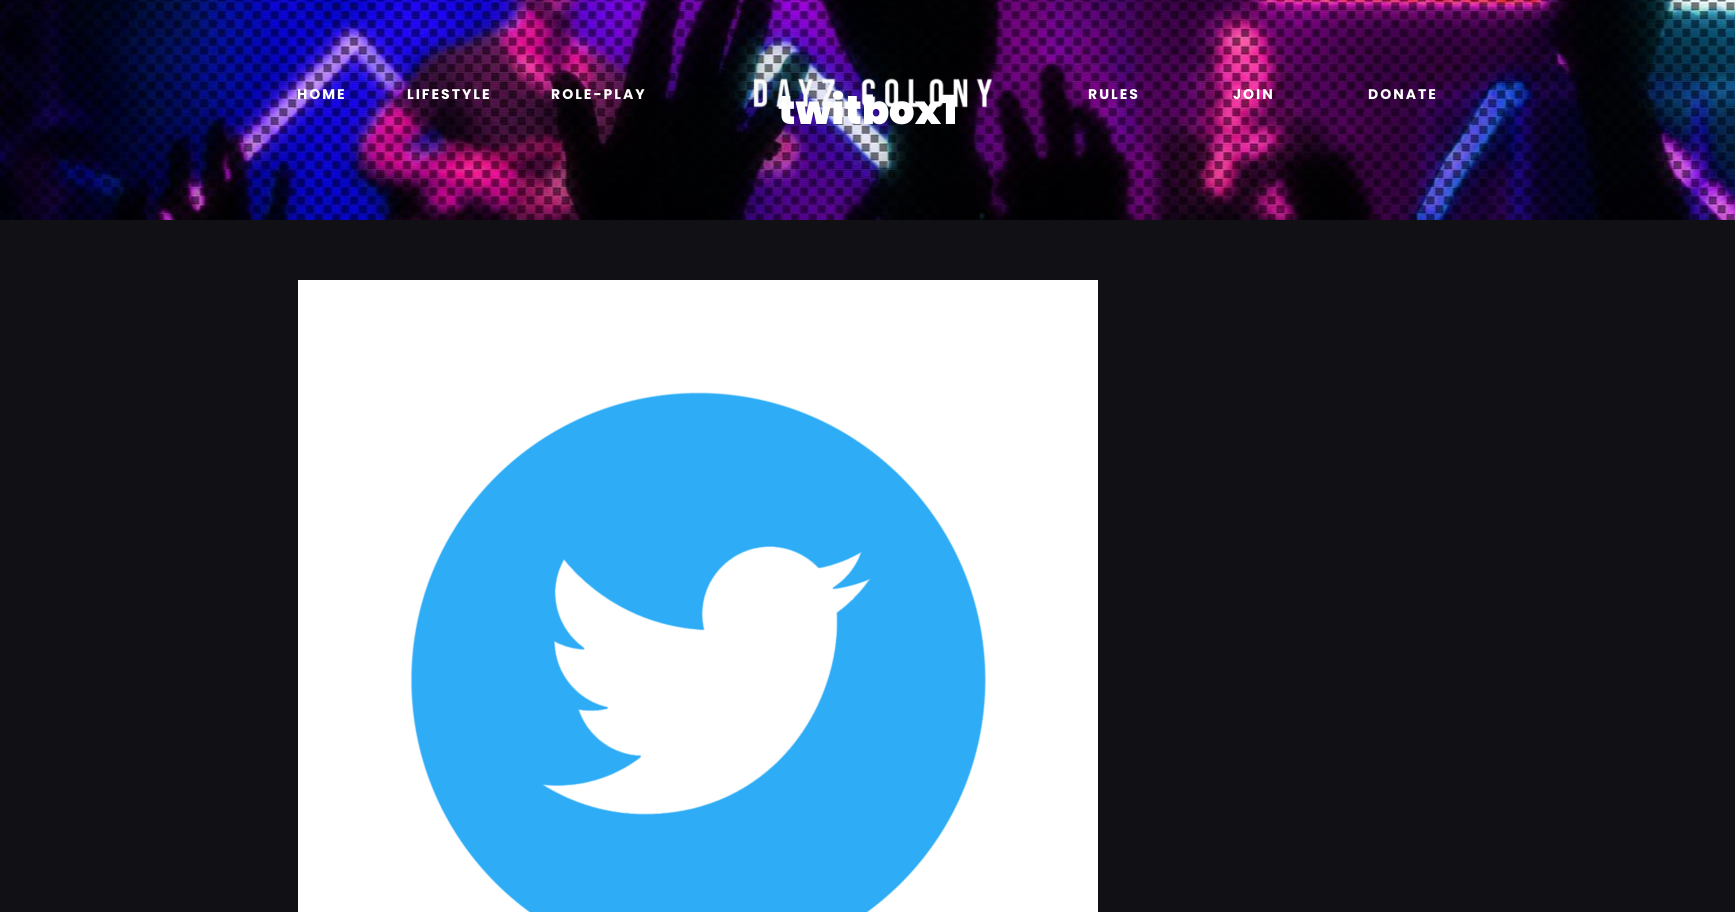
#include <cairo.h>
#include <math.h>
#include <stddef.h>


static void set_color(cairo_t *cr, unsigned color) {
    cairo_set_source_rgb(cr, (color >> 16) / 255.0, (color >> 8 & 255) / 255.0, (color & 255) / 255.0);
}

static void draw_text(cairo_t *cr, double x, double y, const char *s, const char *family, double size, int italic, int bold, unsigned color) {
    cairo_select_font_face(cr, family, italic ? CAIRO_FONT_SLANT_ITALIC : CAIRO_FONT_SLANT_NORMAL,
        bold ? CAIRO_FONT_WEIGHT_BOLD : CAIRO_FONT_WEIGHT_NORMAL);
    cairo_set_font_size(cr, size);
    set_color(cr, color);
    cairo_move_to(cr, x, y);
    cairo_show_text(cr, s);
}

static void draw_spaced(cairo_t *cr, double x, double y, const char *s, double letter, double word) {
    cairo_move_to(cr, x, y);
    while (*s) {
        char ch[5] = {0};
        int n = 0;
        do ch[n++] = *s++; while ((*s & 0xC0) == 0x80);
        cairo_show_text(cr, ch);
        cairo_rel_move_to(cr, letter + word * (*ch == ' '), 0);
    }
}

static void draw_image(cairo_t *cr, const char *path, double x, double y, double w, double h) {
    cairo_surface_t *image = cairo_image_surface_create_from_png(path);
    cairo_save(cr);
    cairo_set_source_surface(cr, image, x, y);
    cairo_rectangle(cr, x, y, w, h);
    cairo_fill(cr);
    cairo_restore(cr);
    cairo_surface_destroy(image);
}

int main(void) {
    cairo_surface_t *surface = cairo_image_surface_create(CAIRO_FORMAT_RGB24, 1735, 912);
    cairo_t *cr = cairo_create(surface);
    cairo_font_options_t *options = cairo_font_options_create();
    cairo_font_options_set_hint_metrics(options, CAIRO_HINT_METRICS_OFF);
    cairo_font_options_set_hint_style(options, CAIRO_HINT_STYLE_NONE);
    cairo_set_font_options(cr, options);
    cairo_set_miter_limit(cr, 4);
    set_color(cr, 0x101015);
    cairo_paint(cr);
    draw_image(cr, "assets/img2.png", 0, 0, 1735, 220);
    cairo_select_font_face(cr, "Poppins", CAIRO_FONT_SLANT_NORMAL, CAIRO_FONT_WEIGHT_BOLD);
    cairo_set_font_size(cr, 14);
    set_color(cr, 0xFFFFFF);
    draw_spaced(cr, 297, 99, "HOME", 2, 0);
    draw_spaced(cr, 407, 99, "LIFESTYLE", 2, 0);
    draw_spaced(cr, 551, 99, "ROLE-PLAY", 2, 0);
    draw_text(cr, 778, 124, "twitbox1", "Poppins Black", 40, 0, 0, 0xFFFFFF);
    draw_image(cr, "assets/img1.png", 753, 78, 240, 30);
    cairo_select_font_face(cr, "Poppins", CAIRO_FONT_SLANT_NORMAL, CAIRO_FONT_WEIGHT_BOLD);
    cairo_set_font_size(cr, 14);
    draw_spaced(cr, 1088, 99, "RULES", 2, 0);
    draw_spaced(cr, 1233, 99, "JOIN", 2, 0);
    draw_spaced(cr, 1368, 99, "DONATE", 2, 0);
    draw_image(cr, "assets/img3.png", 298, 280, 800, 632);
    cairo_surface_write_to_png(surface, "output.png");
    cairo_font_options_destroy(options);
    cairo_destroy(cr);
    cairo_surface_destroy(surface);
    return 0;
}
